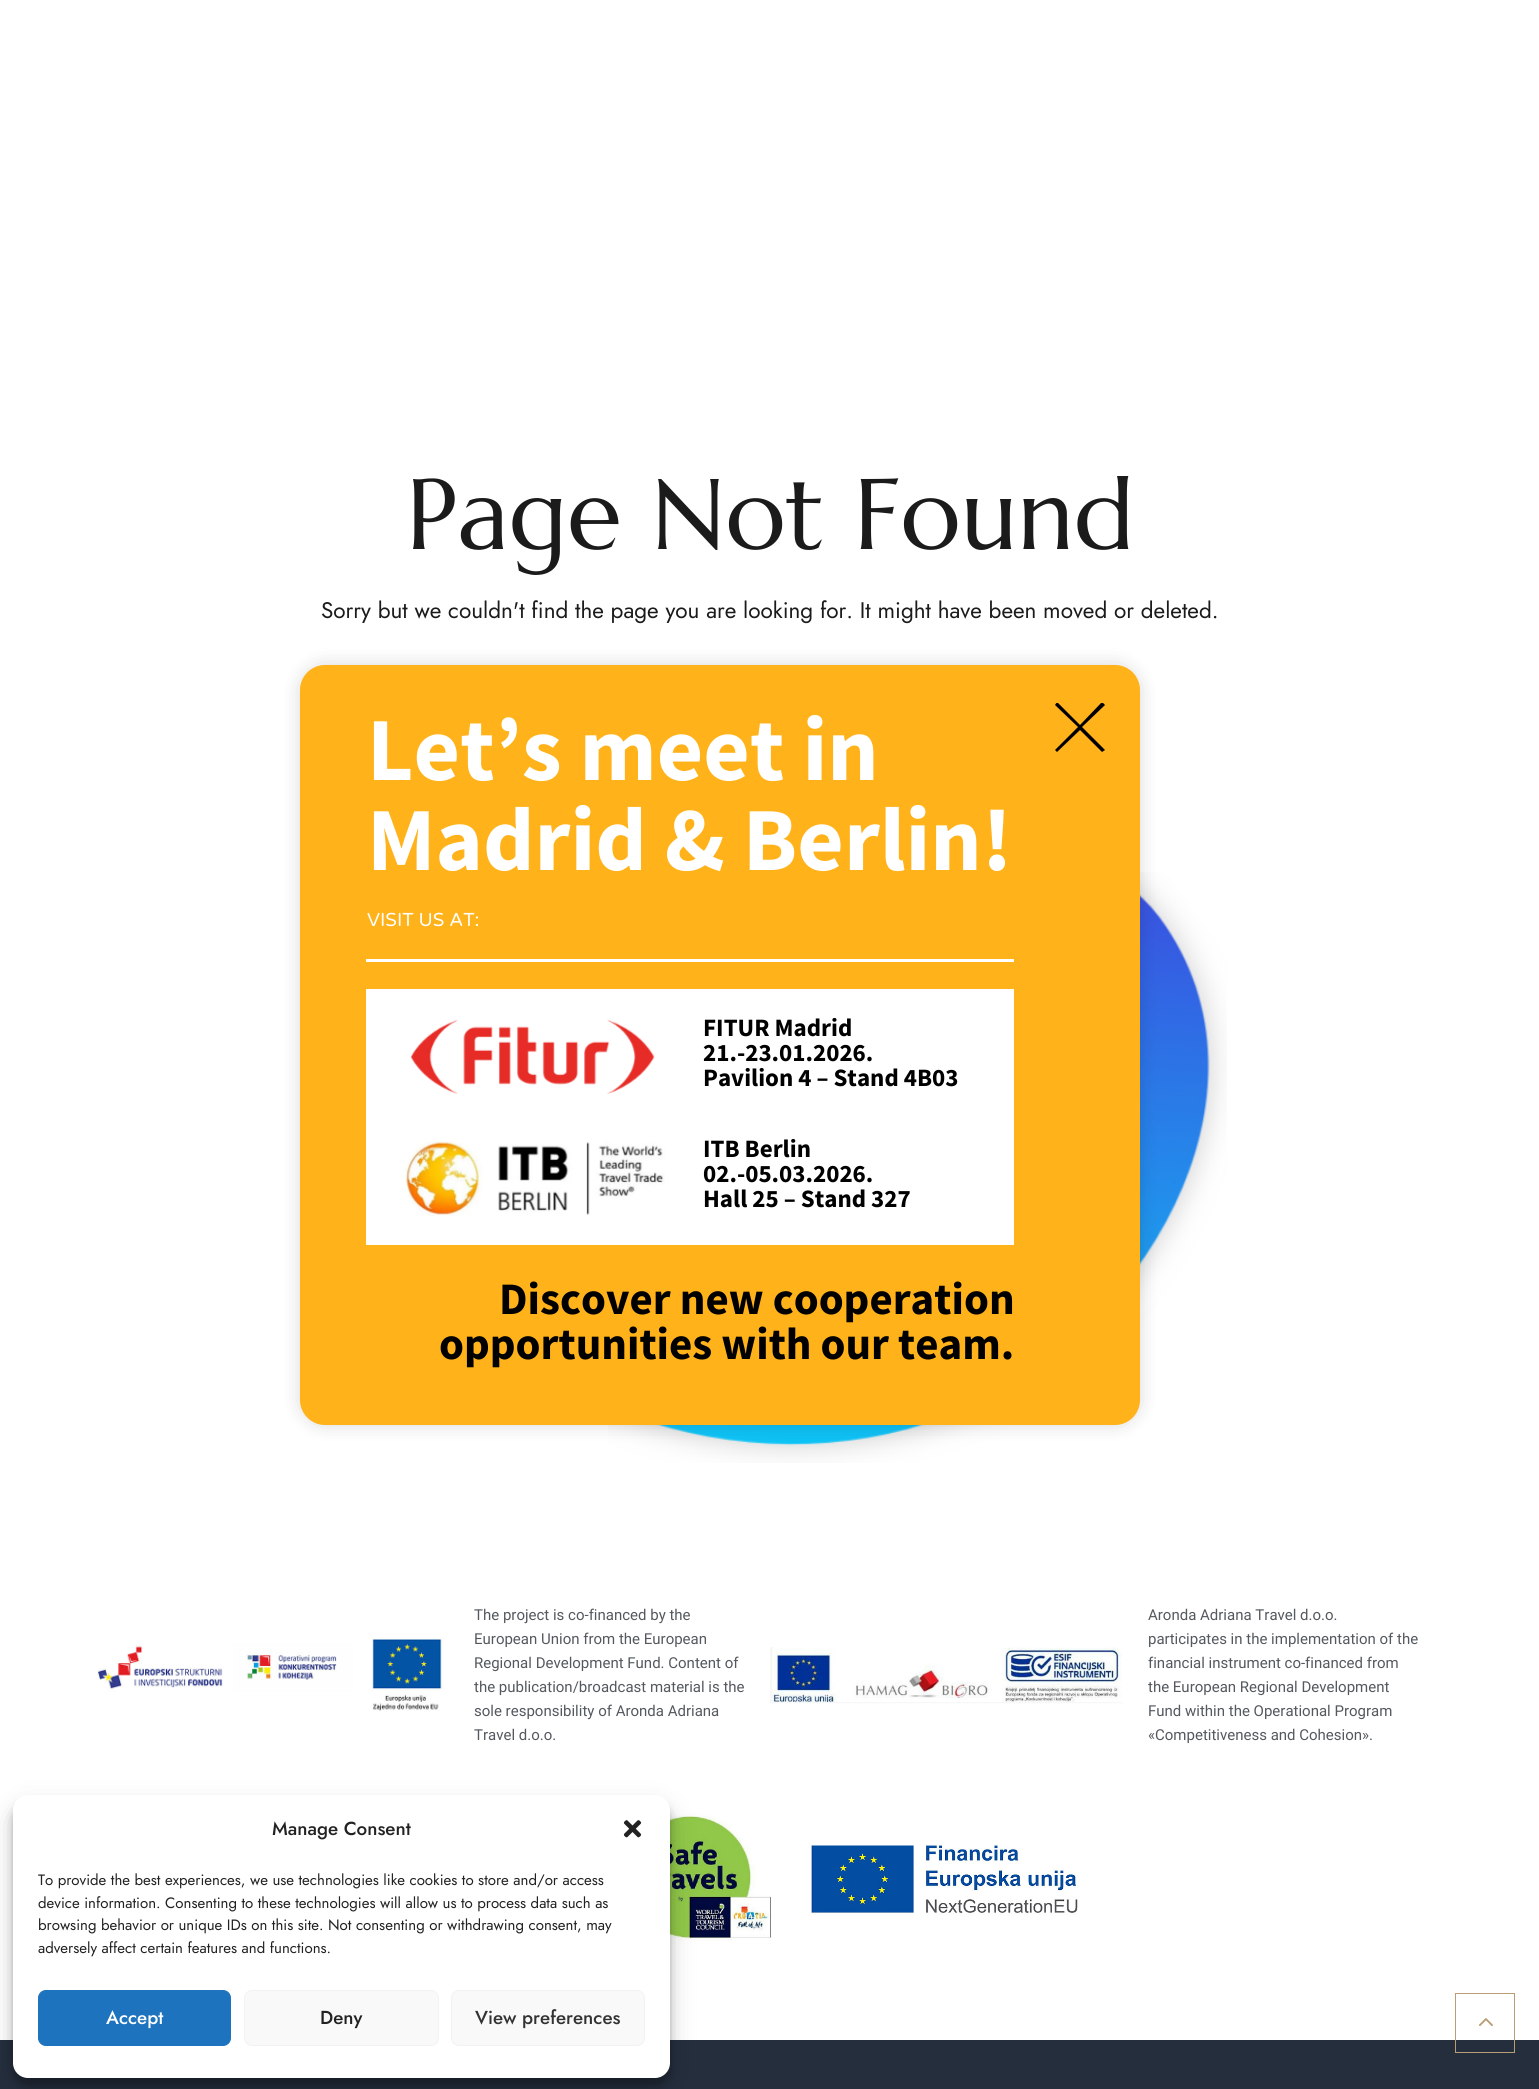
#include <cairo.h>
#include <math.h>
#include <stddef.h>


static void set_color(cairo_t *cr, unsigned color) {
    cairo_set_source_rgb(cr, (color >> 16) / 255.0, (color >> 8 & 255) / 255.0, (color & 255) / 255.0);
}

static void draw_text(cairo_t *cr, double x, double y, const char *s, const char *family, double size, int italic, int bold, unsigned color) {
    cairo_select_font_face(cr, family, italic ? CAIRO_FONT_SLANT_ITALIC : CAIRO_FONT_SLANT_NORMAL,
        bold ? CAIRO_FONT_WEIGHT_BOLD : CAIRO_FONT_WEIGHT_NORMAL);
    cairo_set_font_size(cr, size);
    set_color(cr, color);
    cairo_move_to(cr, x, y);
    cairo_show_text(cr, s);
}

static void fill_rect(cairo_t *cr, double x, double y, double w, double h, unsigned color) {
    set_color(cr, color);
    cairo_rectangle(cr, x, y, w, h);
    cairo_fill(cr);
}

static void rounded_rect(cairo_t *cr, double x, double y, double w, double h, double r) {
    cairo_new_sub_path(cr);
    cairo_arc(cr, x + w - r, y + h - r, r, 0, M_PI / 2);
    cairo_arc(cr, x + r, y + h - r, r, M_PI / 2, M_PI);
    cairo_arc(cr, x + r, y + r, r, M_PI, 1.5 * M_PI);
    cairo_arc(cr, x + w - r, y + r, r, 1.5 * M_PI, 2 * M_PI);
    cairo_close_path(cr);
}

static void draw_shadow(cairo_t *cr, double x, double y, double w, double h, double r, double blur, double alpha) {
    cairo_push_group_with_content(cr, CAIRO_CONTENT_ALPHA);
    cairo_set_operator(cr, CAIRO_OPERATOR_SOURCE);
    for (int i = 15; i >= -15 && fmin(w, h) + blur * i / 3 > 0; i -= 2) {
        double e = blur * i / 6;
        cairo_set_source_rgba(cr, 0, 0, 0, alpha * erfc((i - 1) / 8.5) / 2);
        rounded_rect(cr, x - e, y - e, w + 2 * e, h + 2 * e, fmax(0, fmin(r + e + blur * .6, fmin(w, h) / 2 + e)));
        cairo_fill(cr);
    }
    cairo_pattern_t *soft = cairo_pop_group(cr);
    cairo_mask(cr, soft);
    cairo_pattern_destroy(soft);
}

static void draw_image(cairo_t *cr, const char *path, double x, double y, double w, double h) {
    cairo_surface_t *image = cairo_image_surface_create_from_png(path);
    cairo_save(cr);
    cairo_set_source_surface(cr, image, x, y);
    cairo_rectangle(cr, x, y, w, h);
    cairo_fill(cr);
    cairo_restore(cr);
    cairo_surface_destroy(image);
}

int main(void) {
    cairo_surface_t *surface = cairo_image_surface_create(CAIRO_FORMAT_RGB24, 1539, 2089);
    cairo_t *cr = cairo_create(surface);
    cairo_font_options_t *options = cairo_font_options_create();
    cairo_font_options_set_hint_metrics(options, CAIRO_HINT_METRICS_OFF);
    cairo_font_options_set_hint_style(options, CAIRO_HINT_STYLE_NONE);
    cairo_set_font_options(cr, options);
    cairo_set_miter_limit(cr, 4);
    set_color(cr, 0xFFFFFF);
    cairo_paint(cr);
    draw_text(cr, 406, 549, "Page Not Found", "Marcellus", 100, 0, 0, 0x1A1B1A);
    draw_text(cr, 321, 618, "Sorry but we couldn't find the page you are looking for. It might have been moved or deleted.", "Jost", 22.5, 0, 0, 0x1A1B1A);
    draw_image(cr, "assets/img1.png", 97, 1637, 347, 74);
    draw_text(cr, 474, 1620, "The project is co-financed by the", "Roboto", 15, 0, 0, 0x54595F);
    draw_text(cr, 474, 1644, "European Union from the European", "Roboto", 15, 0, 0, 0x54595F);
    draw_text(cr, 474, 1668, "Regional Development Fund. Content of", "Roboto", 15, 0, 0, 0x54595F);
    draw_text(cr, 474, 1692, "the publication/broadcast material is the", "Roboto", 15, 0, 0, 0x54595F);
    draw_text(cr, 474, 1716, "sole responsibility of Aronda Adriana", "Roboto", 15, 0, 0, 0x54595F);
    draw_text(cr, 474, 1740, "Travel d.o.o.", "Roboto", 15, 0, 0, 0x54595F);
    draw_image(cr, "assets/img2.png", 770, 1647, 353, 57);
    draw_text(cr, 1148, 1620, "Aronda Adriana Travel d.o.o.", "Roboto", 15, 0, 0, 0x54595F);
    draw_text(cr, 1148, 1644, "participates in the implementation of the", "Roboto", 15, 0, 0, 0x54595F);
    draw_text(cr, 1148, 1668, "financial instrument co-financed from", "Roboto", 15, 0, 0, 0x54595F);
    draw_text(cr, 1148, 1692, "the European Regional Development", "Roboto", 15, 0, 0, 0x54595F);
    draw_text(cr, 1148, 1716, "Fund within the Operational Program", "Roboto", 15, 0, 0, 0x54595F);
    draw_text(cr, 1148, 1740, "«Competitiveness and Cohesion».", "Roboto", 15, 0, 0, 0x54595F);
    draw_image(cr, "assets/img3.png", 669, 1809, 103, 137);
    draw_image(cr, "assets/img4.png", 808, 1844, 270, 72);
    fill_rect(cr, 0, 2040, 1539, 49, 0x242E3D);
    draw_image(cr, "assets/img7.png", 608, 872, 619, 591);
    set_color(cr, 0x000000);
    draw_shadow(cr, 300, 665, 840, 760, 25, 9.5, 0.15);
    set_color(cr, 0xFFB21A);
    rounded_rect(cr, 300, 665, 840, 760, 25);
    cairo_fill(cr);
    draw_text(cr, 367, 780, "Let’s meet in", "Source Sans Pro", 90, 0, 1, 0xFFFFFF);
    draw_text(cr, 367, 870, "Madrid & Berlin!", "Source Sans Pro", 90, 0, 1, 0xFFFFFF);
    cairo_save(cr);
    cairo_rectangle(cr, 1055, 703, 50, 50);
    cairo_clip(cr);
    set_color(cr, 0x000000);
    cairo_set_fill_rule(cr, CAIRO_FILL_RULE_EVEN_ODD);
    cairo_new_path(cr);
    cairo_move_to(cr, 1105, 705);
    cairo_line_to(cr, 1102, 702);
    cairo_line_to(cr, 1080, 725);
    cairo_line_to(cr, 1057, 702);
    cairo_line_to(cr, 1055, 705);
    cairo_line_to(cr, 1078, 727);
    cairo_line_to(cr, 1055, 750);
    cairo_line_to(cr, 1057, 752);
    cairo_line_to(cr, 1080, 730);
    cairo_line_to(cr, 1102, 752);
    cairo_line_to(cr, 1105, 750);
    cairo_line_to(cr, 1082, 727);
    cairo_close_path(cr);
    cairo_fill(cr);
    cairo_restore(cr);
    draw_text(cr, 367, 926, "VISIT US AT:", "Varela Round", 18.75, 0, 0, 0xFFFFFF);
    fill_rect(cr, 366, 959, 648, 3, 0xFFFFFF);
    fill_rect(cr, 366, 989, 648, 256, 0xFFFFFF);
    draw_image(cr, "assets/img5.png", 411, 1019, 244, 75);
    draw_text(cr, 703, 1036, "FITUR Madrid", "Source Sans Pro", 25, 0, 1, 0x000000);
    draw_text(cr, 703, 1061, "21.-23.01.2026.", "Source Sans Pro", 25, 0, 1, 0x000000);
    draw_text(cr, 703, 1086, "Pavilion 4 – Stand 4B03", "Source Sans Pro", 25, 0, 1, 0x000000);
    draw_image(cr, "assets/img6.png", 405, 1141, 260, 75);
    draw_text(cr, 703, 1157, "ITB Berlin", "Source Sans Pro", 25, 0, 1, 0x000000);
    draw_text(cr, 703, 1182, "02.-05.03.2026.", "Source Sans Pro", 25, 0, 1, 0x000000);
    draw_text(cr, 703, 1207, "Hall 25 – Stand 327", "Source Sans Pro", 25, 0, 1, 0x000000);
    draw_text(cr, 499, 1314, "Discover new cooperation", "Source Sans Pro", 45, 0, 1, 0x000000);
    draw_text(cr, 439, 1359, "opportunities with our team.", "Source Sans Pro", 45, 0, 1, 0x000000);
    set_color(cr, 0x000000);
    draw_shadow(cr, 13, 1803, 657, 282, 15, 4, 0.23);
    draw_shadow(cr, 13, 1808, 657, 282, 15, 12.5, 0.19);
    set_color(cr, 0xFFFFFF);
    rounded_rect(cr, 13, 1795, 657, 283, 15);
    cairo_fill(cr);
    draw_text(cr, 272, 1835, "Manage Consent", "Jost Medium", 18.75, 0, 0, 0x222222);
    draw_image(cr, "assets/img8.png", 623, 1820, 19, 18);
    draw_text(cr, 38, 1885, "To provide the best experiences, we use technologies like cookies to store and/or access", "Jost", 15, 0, 0, 0x222222);
    draw_text(cr, 38, 1908, "device information. Consenting to these technologies will allow us to process data such as", "Jost", 15, 0, 0, 0x222222);
    draw_text(cr, 38, 1930, "browsing behavior or unique IDs on this site. Not consenting or withdrawing consent, may", "Jost", 15, 0, 0, 0x222222);
    draw_text(cr, 38, 1953, "adversely affect certain features and functions.", "Jost", 15, 0, 0, 0x222222);
    set_color(cr, 0x1E73BE);
    rounded_rect(cr, 38.5, 1990.5, 192, 55, 7.5);
    cairo_fill_preserve(cr);
    cairo_set_line_width(cr, 1);
    cairo_stroke(cr);
    draw_text(cr, 106, 2024, "Accept", "Jost Medium", 18.75, 0, 0, 0xFFFFFF);
    set_color(cr, 0xF9F9F9);
    rounded_rect(cr, 244.5, 1990.5, 194, 55, 7.5);
    cairo_fill_preserve(cr);
    set_color(cr, 0xF2F2F2);
    cairo_stroke(cr);
    draw_text(cr, 320, 2024, "Deny", "Jost Medium", 18.75, 0, 0, 0x222222);
    set_color(cr, 0xF9F9F9);
    rounded_rect(cr, 451.5, 1990.5, 193, 55, 7.5);
    cairo_fill_preserve(cr);
    set_color(cr, 0xF2F2F2);
    cairo_stroke(cr);
    draw_text(cr, 475, 2024, "View preferences", "Jost Medium", 18.75, 0, 0, 0x333333);
    cairo_rectangle(cr, 1455.5, 1993.5, 59, 59);
    set_color(cr, 0xB99D75);
    cairo_stroke(cr);
    draw_image(cr, "assets/img9.png", 1479, 2018, 14, 8);
    cairo_surface_write_to_png(surface, "output.png");
    cairo_font_options_destroy(options);
    cairo_destroy(cr);
    cairo_surface_destroy(surface);
    return 0;
}
